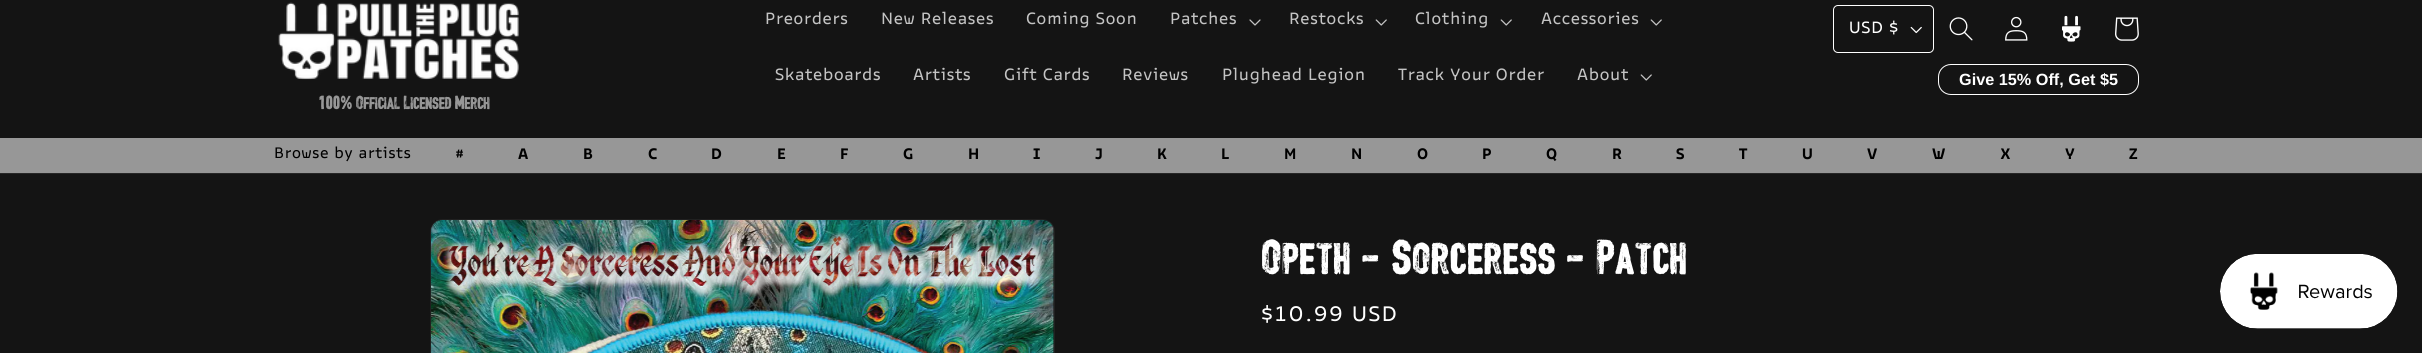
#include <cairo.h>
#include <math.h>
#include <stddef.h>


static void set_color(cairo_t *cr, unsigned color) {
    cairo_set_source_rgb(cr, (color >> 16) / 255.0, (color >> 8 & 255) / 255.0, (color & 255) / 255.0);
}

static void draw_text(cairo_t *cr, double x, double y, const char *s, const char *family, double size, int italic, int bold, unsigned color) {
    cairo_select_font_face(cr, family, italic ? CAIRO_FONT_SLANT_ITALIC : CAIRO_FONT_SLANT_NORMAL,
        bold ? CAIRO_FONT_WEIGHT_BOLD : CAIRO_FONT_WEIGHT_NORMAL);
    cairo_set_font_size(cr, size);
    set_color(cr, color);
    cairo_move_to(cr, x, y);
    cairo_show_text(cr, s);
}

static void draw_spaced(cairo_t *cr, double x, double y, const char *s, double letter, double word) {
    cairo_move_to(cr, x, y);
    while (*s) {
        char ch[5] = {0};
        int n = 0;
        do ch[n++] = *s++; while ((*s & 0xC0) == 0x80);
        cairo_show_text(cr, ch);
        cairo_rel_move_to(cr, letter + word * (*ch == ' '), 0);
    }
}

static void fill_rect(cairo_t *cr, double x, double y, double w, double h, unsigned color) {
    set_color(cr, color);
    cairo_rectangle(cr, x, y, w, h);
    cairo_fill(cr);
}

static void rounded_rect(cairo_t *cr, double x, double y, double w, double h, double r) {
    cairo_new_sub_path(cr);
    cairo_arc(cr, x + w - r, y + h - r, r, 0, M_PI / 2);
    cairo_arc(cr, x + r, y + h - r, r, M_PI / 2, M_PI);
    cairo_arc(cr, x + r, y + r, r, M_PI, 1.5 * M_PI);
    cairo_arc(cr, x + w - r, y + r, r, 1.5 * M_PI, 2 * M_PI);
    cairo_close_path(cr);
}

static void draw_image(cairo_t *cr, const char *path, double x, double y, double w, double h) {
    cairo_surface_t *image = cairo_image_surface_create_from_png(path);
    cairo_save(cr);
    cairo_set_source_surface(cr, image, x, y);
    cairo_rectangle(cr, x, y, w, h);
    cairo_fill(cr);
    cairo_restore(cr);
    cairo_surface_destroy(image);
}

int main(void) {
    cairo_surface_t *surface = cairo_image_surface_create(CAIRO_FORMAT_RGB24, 2422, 353);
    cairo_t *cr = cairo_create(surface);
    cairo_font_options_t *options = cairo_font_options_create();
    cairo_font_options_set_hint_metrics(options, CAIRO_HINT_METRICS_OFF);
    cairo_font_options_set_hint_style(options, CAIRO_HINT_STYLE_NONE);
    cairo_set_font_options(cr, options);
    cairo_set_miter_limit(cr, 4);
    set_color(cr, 0x141414);
    cairo_paint(cr);
    fill_rect(cr, 0, 173, 2422, 1, 0x272727);
    cairo_select_font_face(cr, "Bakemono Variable", CAIRO_FONT_SLANT_NORMAL, CAIRO_FONT_WEIGHT_NORMAL);
    cairo_set_font_size(cr, 17.5);
    set_color(cr, 0xC4C4C4);
    draw_spaced(cr, 765, 24, "Preorders", 0.75, 0);
    draw_spaced(cr, 881, 24, "New Releases", 0.75, 0);
    draw_spaced(cr, 1026, 24, "Coming Soon", 0.75, 0);
    draw_spaced(cr, 1170, 24, "Patches", 0.75, 0);
    draw_image(cr, "assets/img1.png", 1249, 19, 12, 7);
    draw_spaced(cr, 1289, 24, "Restocks", 0.75, 0);
    draw_image(cr, "assets/img2.png", 1375, 19, 12, 7);
    draw_spaced(cr, 1415, 24, "Clothing", 0.75, 0);
    draw_image(cr, "assets/img2.png", 1500, 19, 12, 7);
    draw_spaced(cr, 1541, 24, "Accessories", 0.75, 0);
    draw_image(cr, "assets/img2.png", 1650, 19, 12, 7);
    draw_spaced(cr, 775, 80, "Skateboards", 0.75, 0);
    draw_spaced(cr, 913, 80, "Artists", 0.75, 0);
    draw_spaced(cr, 1004, 80, "Gift Cards", 0.75, 0);
    draw_spaced(cr, 1122, 80, "Reviews", 0.75, 0);
    draw_spaced(cr, 1222, 80, "Plughead Legion", 0.75, 0);
    draw_spaced(cr, 1398, 80, "Track Your Order", 0.75, 0);
    draw_spaced(cr, 1577, 80, "About", 0.75, 0);
    draw_image(cr, "assets/img2.png", 1640, 74, 12, 7);
    rounded_rect(cr, 1833.5, 5.5, 100, 47, 4.5);
    set_color(cr, 0xFFFFFF);
    cairo_set_line_width(cr, 1);
    cairo_stroke(cr);
    draw_spaced(cr, 1849, 33, "USD $", 0.75, 0);
    draw_image(cr, "assets/img3.png", 1910, 26, 12, 8);
    draw_image(cr, "assets/img4.png", 1949, 17, 24, 24);
    draw_image(cr, "assets/img5.png", 2005, 16, 23, 25);
    draw_image(cr, "assets/img6.png", 2062, 15, 19, 27);
    draw_image(cr, "assets/img7.png", 2115, 17, 24, 24);
    rounded_rect(cr, 1938.5, 64.5, 200, 30, 12.5);
    cairo_stroke(cr);
    draw_text(cr, 1959, 85, "Give 15% Off, Get $5", "Liberation Sans", 16.25, 0, 1, 0xFFFFFF);
    draw_image(cr, "assets/img8.png", 278, 2, 241, 78);
    draw_text(cr, 318, 109, "100% Official Licensed Merch", "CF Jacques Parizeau", 20, 0, 0, 0x979797);
    fill_rect(cr, 0, 138, 2422, 35, 0x979797);
    cairo_select_font_face(cr, "Bakemono Variable", CAIRO_FONT_SLANT_NORMAL, CAIRO_FONT_WEIGHT_NORMAL);
    cairo_set_font_size(cr, 16.25);
    set_color(cr, 0x000000);
    draw_spaced(cr, 274, 158, "Browse by artists", 0.75, 0);
    cairo_select_font_face(cr, "Bakemono Variable", CAIRO_FONT_SLANT_NORMAL, CAIRO_FONT_WEIGHT_BOLD);
    draw_spaced(cr, 455, 159, "#", 0.75, 0);
    draw_spaced(cr, 518, 159, "A", 0.75, 0);
    draw_spaced(cr, 583, 159, "B", 0.75, 0);
    draw_spaced(cr, 648, 159, "C", 0.75, 0);
    draw_spaced(cr, 711, 159, "D", 0.75, 0);
    draw_spaced(cr, 777, 159, "E", 0.75, 0);
    draw_spaced(cr, 840, 159, "F", 0.75, 0);
    draw_spaced(cr, 903, 159, "G", 0.75, 0);
    draw_spaced(cr, 968, 159, "H", 0.75, 0);
    draw_spaced(cr, 1033, 159, "I", 0.75, 0);
    draw_spaced(cr, 1095, 159, "J", 0.75, 0);
    draw_spaced(cr, 1157, 159, "K", 0.75, 0);
    draw_spaced(cr, 1221, 159, "L", 0.75, 0);
    draw_spaced(cr, 1284, 159, "M", 0.75, 0);
    draw_spaced(cr, 1351, 159, "N", 0.75, 0);
    draw_spaced(cr, 1417, 159, "O", 0.75, 0);
    draw_spaced(cr, 1482, 159, "P", 0.75, 0);
    draw_spaced(cr, 1546, 159, "Q", 0.75, 0);
    draw_spaced(cr, 1612, 159, "R", 0.75, 0);
    draw_spaced(cr, 1676, 159, "S", 0.75, 0);
    draw_spaced(cr, 1739, 159, "T", 0.75, 0);
    draw_spaced(cr, 1802, 159, "U", 0.75, 0);
    draw_spaced(cr, 1867, 159, "V", 0.75, 0);
    draw_spaced(cr, 1932, 159, "W", 0.75, 0);
    draw_spaced(cr, 2000, 159, "X", 0.75, 0);
    draw_spaced(cr, 2065, 159, "Y", 0.75, 0);
    draw_spaced(cr, 2129, 159, "Z", 0.75, 0);
    rounded_rect(cr, 430.5, 219.5, 624, 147, 12.5);
    set_color(cr, 0x202020);
    cairo_stroke(cr);
    draw_image(cr, "assets/img9.png", 431, 220, 623, 133);
    cairo_select_font_face(cr, "CF Jacques Parizeau", CAIRO_FONT_SLANT_NORMAL, CAIRO_FONT_WEIGHT_NORMAL);
    cairo_set_font_size(cr, 52);
    set_color(cr, 0xFFFFFF);
    draw_spaced(cr, 1261, 274, "Opeth - Sorceress - Patch", 1.1, 0);
    cairo_select_font_face(cr, "Bakemono Variable", CAIRO_FONT_SLANT_NORMAL, CAIRO_FONT_WEIGHT_NORMAL);
    cairo_set_font_size(cr, 22.5);
    draw_spaced(cr, 1261, 321, "$10.99 USD", 1.6, 0);
    draw_image(cr, "assets/img10.png", 2220, 254, 178, 75);
    cairo_surface_write_to_png(surface, "output.png");
    cairo_font_options_destroy(options);
    cairo_destroy(cr);
    cairo_surface_destroy(surface);
    return 0;
}
